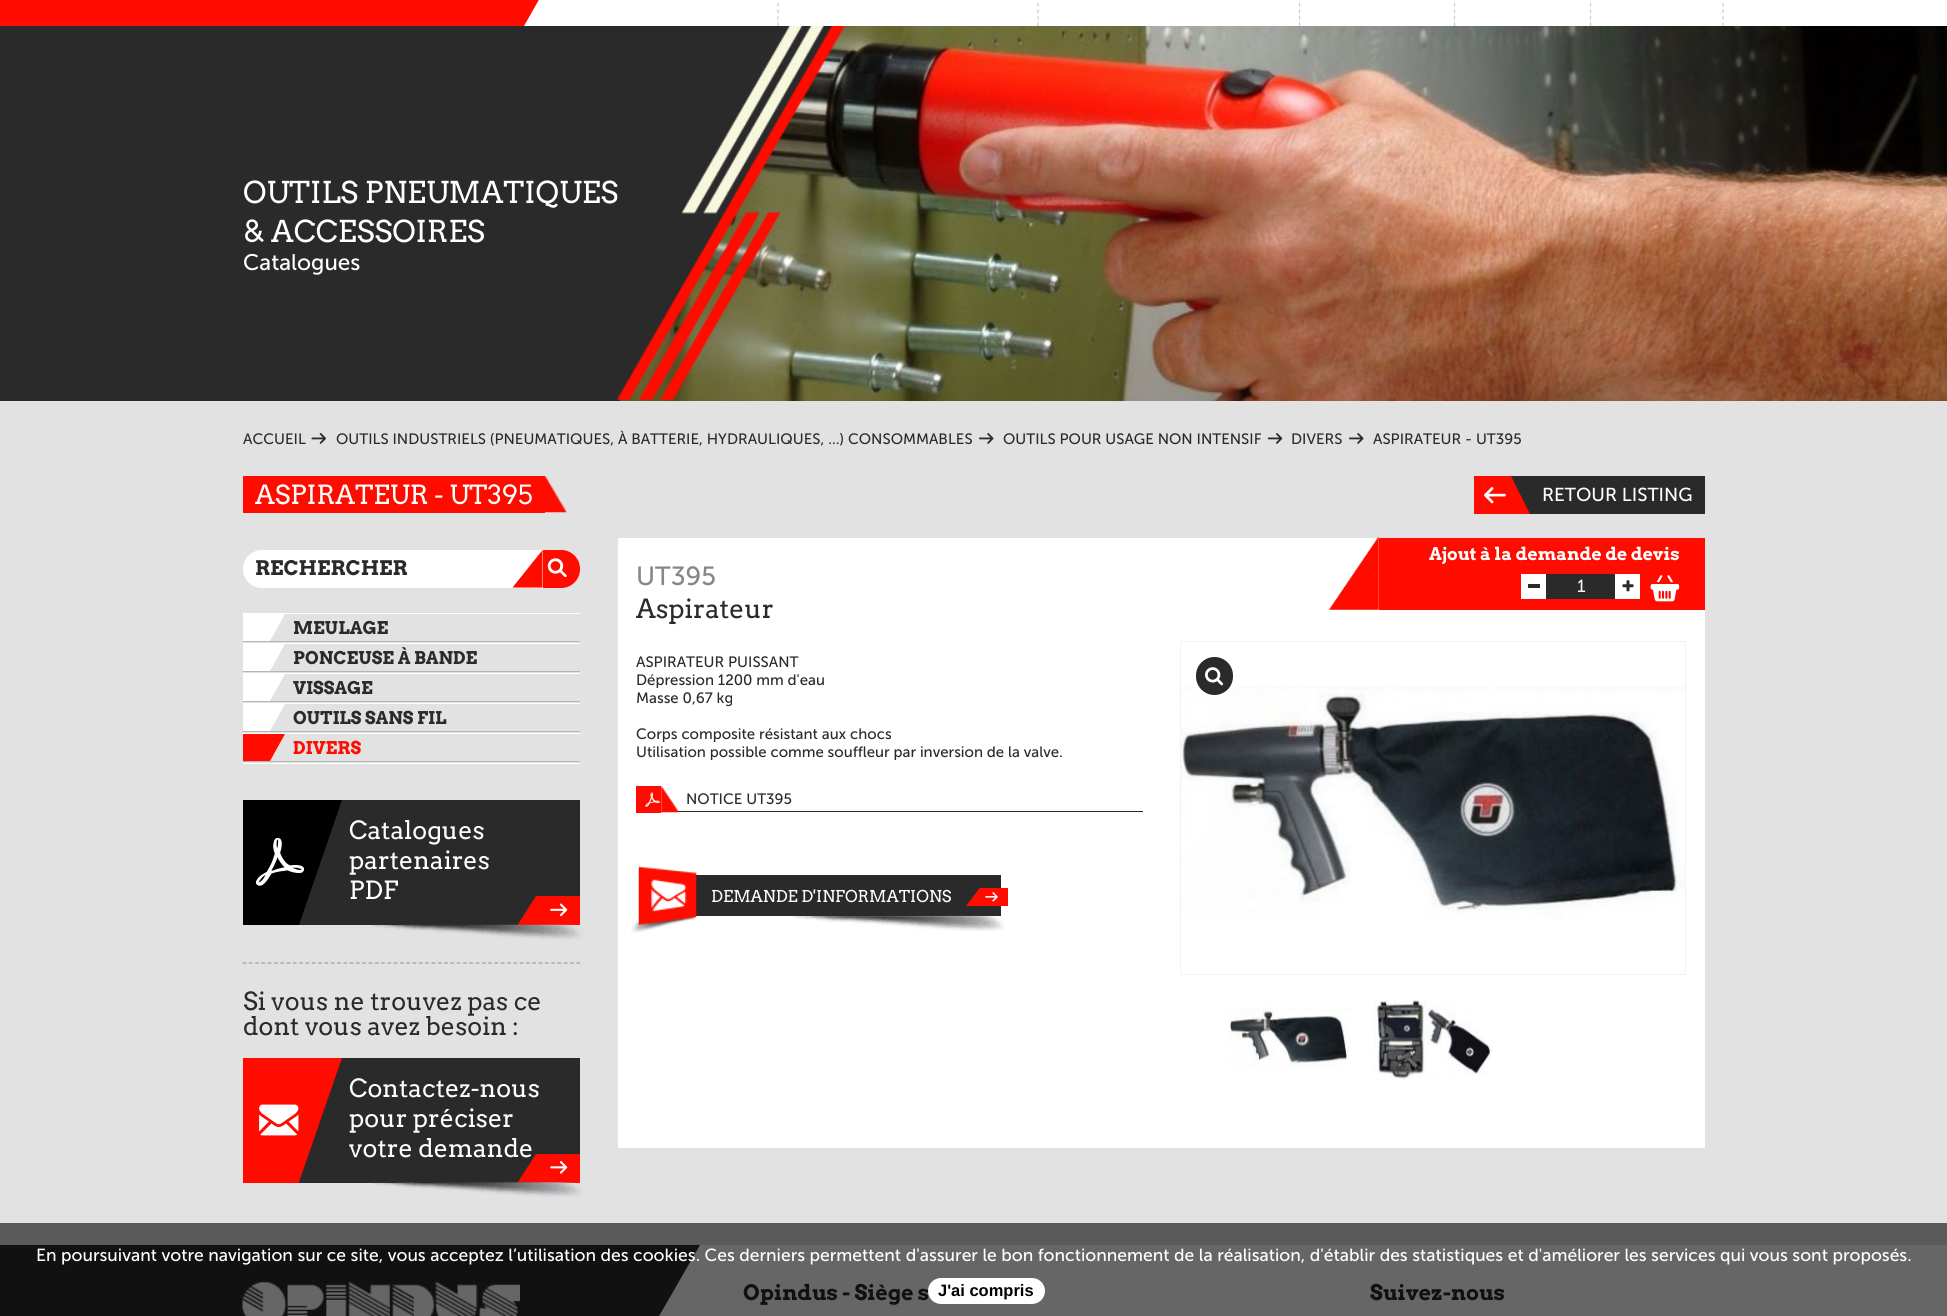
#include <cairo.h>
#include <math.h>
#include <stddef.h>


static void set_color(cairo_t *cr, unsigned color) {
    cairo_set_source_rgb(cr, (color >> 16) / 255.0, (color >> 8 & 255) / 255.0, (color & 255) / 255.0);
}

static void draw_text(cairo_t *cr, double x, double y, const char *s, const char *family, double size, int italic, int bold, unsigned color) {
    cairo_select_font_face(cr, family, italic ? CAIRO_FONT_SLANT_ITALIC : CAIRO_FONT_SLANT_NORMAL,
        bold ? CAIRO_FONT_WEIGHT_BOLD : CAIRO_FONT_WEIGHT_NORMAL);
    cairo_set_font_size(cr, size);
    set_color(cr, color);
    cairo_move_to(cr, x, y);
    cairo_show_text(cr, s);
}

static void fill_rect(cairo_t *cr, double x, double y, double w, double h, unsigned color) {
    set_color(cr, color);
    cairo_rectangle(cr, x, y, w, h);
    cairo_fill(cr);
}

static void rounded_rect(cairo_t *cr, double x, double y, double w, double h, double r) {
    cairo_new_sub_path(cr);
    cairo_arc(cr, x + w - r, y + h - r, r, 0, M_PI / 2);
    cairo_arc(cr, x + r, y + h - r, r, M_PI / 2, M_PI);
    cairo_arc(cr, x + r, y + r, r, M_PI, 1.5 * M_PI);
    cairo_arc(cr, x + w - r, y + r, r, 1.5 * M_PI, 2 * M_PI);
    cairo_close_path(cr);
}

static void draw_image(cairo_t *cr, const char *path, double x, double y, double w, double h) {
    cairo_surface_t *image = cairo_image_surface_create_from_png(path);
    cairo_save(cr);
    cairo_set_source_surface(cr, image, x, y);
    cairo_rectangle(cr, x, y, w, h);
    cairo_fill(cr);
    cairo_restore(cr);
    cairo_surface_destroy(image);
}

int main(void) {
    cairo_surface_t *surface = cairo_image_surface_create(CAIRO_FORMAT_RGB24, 1947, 1316);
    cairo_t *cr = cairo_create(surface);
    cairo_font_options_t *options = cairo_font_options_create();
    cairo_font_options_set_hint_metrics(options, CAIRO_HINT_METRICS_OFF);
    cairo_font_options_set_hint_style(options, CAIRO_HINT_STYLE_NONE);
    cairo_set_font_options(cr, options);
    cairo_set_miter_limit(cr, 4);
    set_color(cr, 0xFFFFFF);
    cairo_paint(cr);
    fill_rect(cr, 659, 1245, 1288, 71, 0x666666);
    fill_rect(cr, 0, 0, 524, 26, 0xFF0B00);
    cairo_new_path(cr);
    cairo_move_to(cr, 524, -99);
    cairo_line_to(cr, 595, -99);
    cairo_line_to(cr, 524, 26);
    cairo_close_path(cr);
    cairo_fill(cr);
    cairo_new_path(cr);
    cairo_move_to(cr, 778, -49);
    cairo_line_to(cr, 778, 26);
    set_color(cr, 0xCCCCCC);
    cairo_set_line_width(cr, 1.2);
    cairo_set_dash(cr, (double[]){3.75, 2.73}, 2, 0);
    cairo_stroke(cr);
    cairo_new_path(cr);
    cairo_move_to(cr, 1038, -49);
    cairo_line_to(cr, 1038, 26);
    cairo_stroke(cr);
    cairo_new_path(cr);
    cairo_move_to(cr, 1299.5, -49);
    cairo_line_to(cr, 1299.5, 26);
    cairo_stroke(cr);
    cairo_new_path(cr);
    cairo_move_to(cr, 1454.5, -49);
    cairo_line_to(cr, 1454.5, 26);
    cairo_stroke(cr);
    cairo_new_path(cr);
    cairo_move_to(cr, 1590.5, -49);
    cairo_line_to(cr, 1590.5, 26);
    cairo_stroke(cr);
    cairo_new_path(cr);
    cairo_move_to(cr, 1723, -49);
    cairo_line_to(cr, 1723, 26);
    cairo_stroke(cr);
    fill_rect(cr, 0, 26, 620, 375, 0x2A2A2A);
    draw_text(cr, 243, 203, "OUTILS PNEUMATIQUES", "Arvo", 30, 0, 0, 0xFFFFFF);
    draw_text(cr, 243, 242, "& ACCESSOIRES", "Arvo", 30, 0, 0, 0xFFFFFF);
    draw_text(cr, 243, 270, "Catalogues", "Museo Sans", 22.5, 0, 0, 0xFFFFFF);
    draw_image(cr, "assets/img2.png", 620, 26, 1327, 375);
    draw_image(cr, "assets/img1.png", 617, 26, 228, 374);
    fill_rect(cr, 0, 401, 1947, 822, 0xE2E2E2);
    fill_rect(cr, 0, 1223, 1947, 22, 0x5A5A5A);
    draw_text(cr, 243, 444, "ACCUEIL", "Museo Sans", 15, 0, 0, 0x2A2A2A);
    draw_image(cr, "assets/img3.png", 311, 433, 15, 11);
    draw_text(cr, 336, 444, "OUTILS INDUSTRIELS (PNEUMATIQUES, À BATTERIE, HYDRAULIQUES, ...) CONSOMMABLES", "Museo Sans", 15, 0, 0, 0x2A2A2A);
    draw_image(cr, "assets/img4.png", 979, 433, 15, 11);
    draw_text(cr, 1003, 444, "OUTILS POUR USAGE NON INTENSIF", "Museo Sans", 15, 0, 0, 0x2A2A2A);
    draw_image(cr, "assets/img5.png", 1267, 433, 16, 11);
    draw_text(cr, 1291, 444, "DIVERS", "Museo Sans", 15, 0, 0, 0x2A2A2A);
    draw_image(cr, "assets/img4.png", 1349, 433, 15, 11);
    draw_text(cr, 1373, 444, "ASPIRATEUR - UT395", "Museo Sans", 15, 0, 0, 0x2A2A2A);
    fill_rect(cr, 243, 476, 302, 37, 0xFF0B00);
    draw_text(cr, 255, 504, "ASPIRATEUR - UT395", "Arvo", 26.25, 0, 0, 0xFFFFFF);
    draw_image(cr, "assets/img6.png", 545, 476, 22, 37);
    fill_rect(cr, 1511, 476, 194, 38, 0x2A2A2A);
    fill_rect(cr, 1474, 476, 37, 38, 0xFF0B00);
    draw_image(cr, "assets/img7.png", 1484, 487, 22, 17);
    cairo_new_path(cr);
    cairo_move_to(cr, 1511, 514);
    cairo_line_to(cr, 1511, 476);
    cairo_line_to(cr, 1530, 514);
    cairo_close_path(cr);
    cairo_fill(cr);
    draw_text(cr, 1542, 501, "RETOUR LISTING", "Museo Sans", 18.75, 0, 0, 0xFFFFFF);
    rounded_rect(cr, 243, 550, 337, 38, 19);
    cairo_fill(cr);
    draw_text(cr, 255, 575, "RECHERCHER", "Arvo", 20, 0, 1, 0x2A2A2A);
    set_color(cr, 0xFF0B00);
    cairo_new_path(cr);
    cairo_move_to(cr, 543, 550);
    cairo_line_to(cr, 561.5, 550);
    cairo_curve_to(cr, 571.5, 550, 580, 558.5, 580, 568.5);
    cairo_line_to(cr, 580, 569.5);
    cairo_curve_to(cr, 580, 579.5, 571.5, 588, 561.5, 588);
    cairo_line_to(cr, 543, 588);
    cairo_close_path(cr);
    cairo_fill(cr);
    cairo_new_path(cr);
    cairo_move_to(cr, 542.5, 587.5);
    cairo_line_to(cr, 512.5, 587.5);
    cairo_line_to(cr, 542.5, 550);
    cairo_close_path(cr);
    cairo_fill(cr);
    draw_image(cr, "assets/img8.png", 547, 558, 20, 20);
    fill_rect(cr, 243, 761, 337, 1, 0xB5B5B5);
    fill_rect(cr, 243, 613, 337, 1, 0xFFFFFF);
    fill_rect(cr, 243, 641, 337, 1, 0xB5B5B5);
    fill_rect(cr, 243, 614, 27, 27, 0xFFFFFF);
    cairo_new_path(cr);
    cairo_move_to(cr, 270, 614);
    cairo_line_to(cr, 285, 614);
    cairo_line_to(cr, 270, 641);
    cairo_close_path(cr);
    cairo_fill(cr);
    draw_text(cr, 293, 634, "MEULAGE", "Arvo", 17.5, 0, 1, 0x2A2A2A);
    fill_rect(cr, 243, 643, 337, 1, 0xFFFFFF);
    fill_rect(cr, 243, 671, 337, 1, 0xB5B5B5);
    fill_rect(cr, 243, 644, 27, 27, 0xFFFFFF);
    cairo_new_path(cr);
    cairo_move_to(cr, 270, 644);
    cairo_line_to(cr, 285, 644);
    cairo_line_to(cr, 270, 671);
    cairo_close_path(cr);
    cairo_fill(cr);
    draw_text(cr, 293, 664, "PONCEUSE À BANDE", "Arvo", 17.5, 0, 1, 0x2A2A2A);
    fill_rect(cr, 243, 673, 337, 1, 0xFFFFFF);
    fill_rect(cr, 243, 701, 337, 1, 0xB5B5B5);
    fill_rect(cr, 243, 674, 27, 27, 0xFFFFFF);
    cairo_new_path(cr);
    cairo_move_to(cr, 270, 674);
    cairo_line_to(cr, 285, 674);
    cairo_line_to(cr, 270, 701);
    cairo_close_path(cr);
    cairo_fill(cr);
    draw_text(cr, 293, 694, "VISSAGE", "Arvo", 17.5, 0, 1, 0x2A2A2A);
    fill_rect(cr, 243, 703, 337, 1, 0xFFFFFF);
    fill_rect(cr, 243, 731, 337, 1, 0xB5B5B5);
    fill_rect(cr, 243, 704, 27, 27, 0xFFFFFF);
    cairo_new_path(cr);
    cairo_move_to(cr, 270, 704);
    cairo_line_to(cr, 285, 704);
    cairo_line_to(cr, 270, 731);
    cairo_close_path(cr);
    cairo_fill(cr);
    draw_text(cr, 293, 724, "OUTILS SANS FIL", "Arvo", 17.5, 0, 1, 0x2A2A2A);
    fill_rect(cr, 243, 733, 337, 1, 0xFFFFFF);
    fill_rect(cr, 243, 734, 27, 27, 0xFF0B00);
    cairo_new_path(cr);
    cairo_move_to(cr, 270, 734);
    cairo_line_to(cr, 285, 734);
    cairo_line_to(cr, 270, 761);
    cairo_close_path(cr);
    cairo_fill(cr);
    draw_text(cr, 293, 754, "DIVERS", "Arvo", 17.5, 0, 1, 0xFF0B00);
    fill_rect(cr, 243, 763, 337, 1, 0xFFFFFF);
    fill_rect(cr, 299, 800, 281, 125, 0x2A2A2A);
    fill_rect(cr, 243, 800, 56, 125, 0x000000);
    cairo_new_path(cr);
    cairo_move_to(cr, 299, 800);
    cairo_line_to(cr, 342, 800);
    cairo_line_to(cr, 299, 925);
    cairo_close_path(cr);
    cairo_fill(cr);
    draw_image(cr, "assets/img9.png", 255, 838, 50, 48);
    draw_text(cr, 349, 839, "Catalogues", "Arvo", 25, 0, 0, 0xFFFFFF);
    draw_text(cr, 349, 869, "partenaires", "Arvo", 25, 0, 0, 0xFFFFFF);
    draw_text(cr, 349, 899, "PDF", "Arvo", 25, 0, 0, 0xFFFFFF);
    fill_rect(cr, 536, 896, 44, 29, 0xFF0B00);
    cairo_new_path(cr);
    cairo_move_to(cr, 536, 925);
    cairo_line_to(cr, 517.5, 925);
    cairo_line_to(cr, 536, 896);
    cairo_close_path(cr);
    cairo_fill(cr);
    draw_image(cr, "assets/img10.png", 550, 903, 18, 14);
    draw_image(cr, "assets/img11.png", 371, 924, 212, 16);
    cairo_new_path(cr);
    cairo_move_to(cr, 242.5, 963);
    cairo_line_to(cr, 580, 963);
    set_color(cr, 0x9E9E9E);
    cairo_set_dash(cr, (double[]){3.75, 2.55}, 2, 0);
    cairo_stroke(cr);
    draw_text(cr, 243, 1010, "Si vous ne trouvez pas ce", "Arvo", 25, 0, 0, 0x2A2A2A);
    draw_text(cr, 243, 1035, "dont vous avez besoin :", "Arvo", 25, 0, 0, 0x2A2A2A);
    fill_rect(cr, 299, 1058, 281, 125, 0x2A2A2A);
    fill_rect(cr, 243, 1058, 56, 125, 0xFF0B00);
    draw_image(cr, "assets/img12.png", 259, 1104, 40, 32);
    cairo_new_path(cr);
    cairo_move_to(cr, 299, 1058);
    cairo_line_to(cr, 342, 1058);
    cairo_line_to(cr, 299, 1182);
    cairo_close_path(cr);
    cairo_fill(cr);
    draw_text(cr, 349, 1097, "Contactez-nous", "Arvo", 25, 0, 0, 0xFFFFFF);
    draw_text(cr, 349, 1127, "pour préciser", "Arvo", 25, 0, 0, 0xFFFFFF);
    draw_text(cr, 349, 1157, "votre demande", "Arvo", 25, 0, 0, 0xFFFFFF);
    fill_rect(cr, 536, 1154, 44, 29, 0xFF0B00);
    cairo_new_path(cr);
    cairo_move_to(cr, 536, 1182.5);
    cairo_line_to(cr, 517.5, 1182.5);
    cairo_line_to(cr, 536, 1154);
    cairo_close_path(cr);
    cairo_fill(cr);
    draw_image(cr, "assets/img13.png", 550, 1161, 18, 13);
    draw_image(cr, "assets/img14.png", 371, 1182, 211, 15);
    fill_rect(cr, 618, 538, 1087, 610, 0xFFFFFF);
    draw_text(cr, 636, 585, "UT395", "Museo Sans", 26.25, 0, 0, 0x878787);
    draw_text(cr, 636, 618, "Aspirateur", "Arvo", 26.25, 0, 0, 0x2A2A2A);
    fill_rect(cr, 1379, 538, 326, 72, 0xFF0B00);
    draw_image(cr, "assets/img15.png", 1328, 537, 51, 73);
    draw_text(cr, 1429, 560, "Ajout à la demande de devis", "Arvo", 17.5, 0, 1, 0xFFFFFF);
    fill_rect(cr, 1521, 574, 25, 25, 0xFFFFFF);
    fill_rect(cr, 1528, 584, 12, 4, 0x2A2A2A);
    fill_rect(cr, 1546, 574, 69, 25, 0x2A2A2A);
    draw_text(cr, 1577, 592, "1", "Museo Sans", 17.5, 0, 0, 0xF2F2F2);
    fill_rect(cr, 1615, 574, 25, 25, 0xFFFFFF);
    draw_image(cr, "assets/img16.png", 1622, 580, 12, 12);
    draw_image(cr, "assets/img17.png", 1650, 575, 30, 27);
    draw_text(cr, 636, 667, "ASPIRATEUR PUISSANT", "Museo Sans", 15, 0, 0, 0x2A2A2A);
    draw_text(cr, 636, 685, "Dépression 1200 mm d'eau", "Museo Sans", 15, 0, 0, 0x2A2A2A);
    draw_text(cr, 636, 703, "Masse 0,67 kg", "Museo Sans", 15, 0, 0, 0x2A2A2A);
    draw_text(cr, 636, 739, "Corps composite résistant aux chocs", "Museo Sans", 15, 0, 0, 0x2A2A2A);
    draw_text(cr, 636, 757, "Utilisation possible comme souffleur par inversion de la valve.", "Museo Sans", 15, 0, 0, 0x2A2A2A);
    fill_rect(cr, 661, 811, 482, 1, 0x2A2A2A);
    fill_rect(cr, 636, 786, 25, 27, 0xFF0B00);
    draw_image(cr, "assets/img18.png", 645, 792, 15, 15);
    draw_image(cr, "assets/img19.png", 661, 786, 18, 27);
    draw_text(cr, 686, 804, "NOTICE UT395", "Museo Sans", 15, 0, 0, 0x2A2A2A);
    fill_rect(cr, 695, 875, 306, 41, 0x2A2A2A);
    draw_image(cr, "assets/img20.png", 631, 866, 66, 67);
    draw_text(cr, 711, 902, "DEMANDE D'INFORMATIONS", "Arvo", 16.25, 0, 0, 0xFFFFFF);
    fill_rect(cr, 980, 888, 28, 18, 0xFF0B00);
    cairo_new_path(cr);
    cairo_move_to(cr, 980, 906);
    cairo_line_to(cr, 966, 906);
    cairo_line_to(cr, 980, 887.5);
    cairo_close_path(cr);
    cairo_fill(cr);
    draw_image(cr, "assets/img21.png", 985, 892, 13, 10);
    draw_image(cr, "assets/img22.png", 792, 915, 213, 16);
    cairo_rectangle(cr, 1180.5, 641.5, 505, 333);
    set_color(cr, 0xF2F2F2);
    cairo_set_line_width(cr, 1);
    cairo_set_dash(cr, NULL, 0, 0);
    cairo_stroke(cr);
    draw_image(cr, "assets/img23.png", 1181, 686, 504, 233);
    set_color(cr, 0x2A2A2A);
    rounded_rect(cr, 1194.5, 655.5, 40, 41, 20);
    cairo_fill_preserve(cr);
    set_color(cr, 0xFFFFFF);
    cairo_set_line_width(cr, 3);
    cairo_stroke(cr);
    draw_image(cr, "assets/img24.png", 1205, 667, 19, 19);
    draw_image(cr, "assets/img25.png", 1230, 1007, 119, 61);
    draw_image(cr, "assets/img26.png", 1374, 999, 119, 80);
    fill_rect(cr, 0, 1245, 545, 71, 0x111111);
    cairo_new_path(cr);
    cairo_move_to(cr, 545, 1245);
    cairo_line_to(cr, 700, 1245);
    cairo_line_to(cr, 545, 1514);
    cairo_close_path(cr);
    cairo_fill(cr);
    draw_text(cr, 36, 1261, "En poursuivant votre navigation sur ce site, vous acceptez l’utilisation des cookies. Ces derniers permettent d'assurer le bon fonctionnement de la réalisation, d'établir des statistiques et d'améliorer les services qui vous sont proposés.", "Museo Sans", 17.5, 0, 0, 0xFFFFFF);
    rounded_rect(cr, 928, 1278, 117, 26, 13);
    cairo_fill(cr);
    draw_text(cr, 938, 1296, "J'ai compris", "Liberation Sans", 16.5, 0, 1, 0x000000);
    draw_image(cr, "assets/img27.png", 242, 1282, 278, 34);
    draw_text(cr, 743, 1300, "Opindus - Siège s", "Arvo", 21.25, 0, 1, 0x111111);
    draw_text(cr, 1370, 1300, "Suivez-nous", "Arvo", 21.25, 0, 1, 0x111111);
    cairo_surface_write_to_png(surface, "output.png");
    cairo_font_options_destroy(options);
    cairo_destroy(cr);
    cairo_surface_destroy(surface);
    return 0;
}
